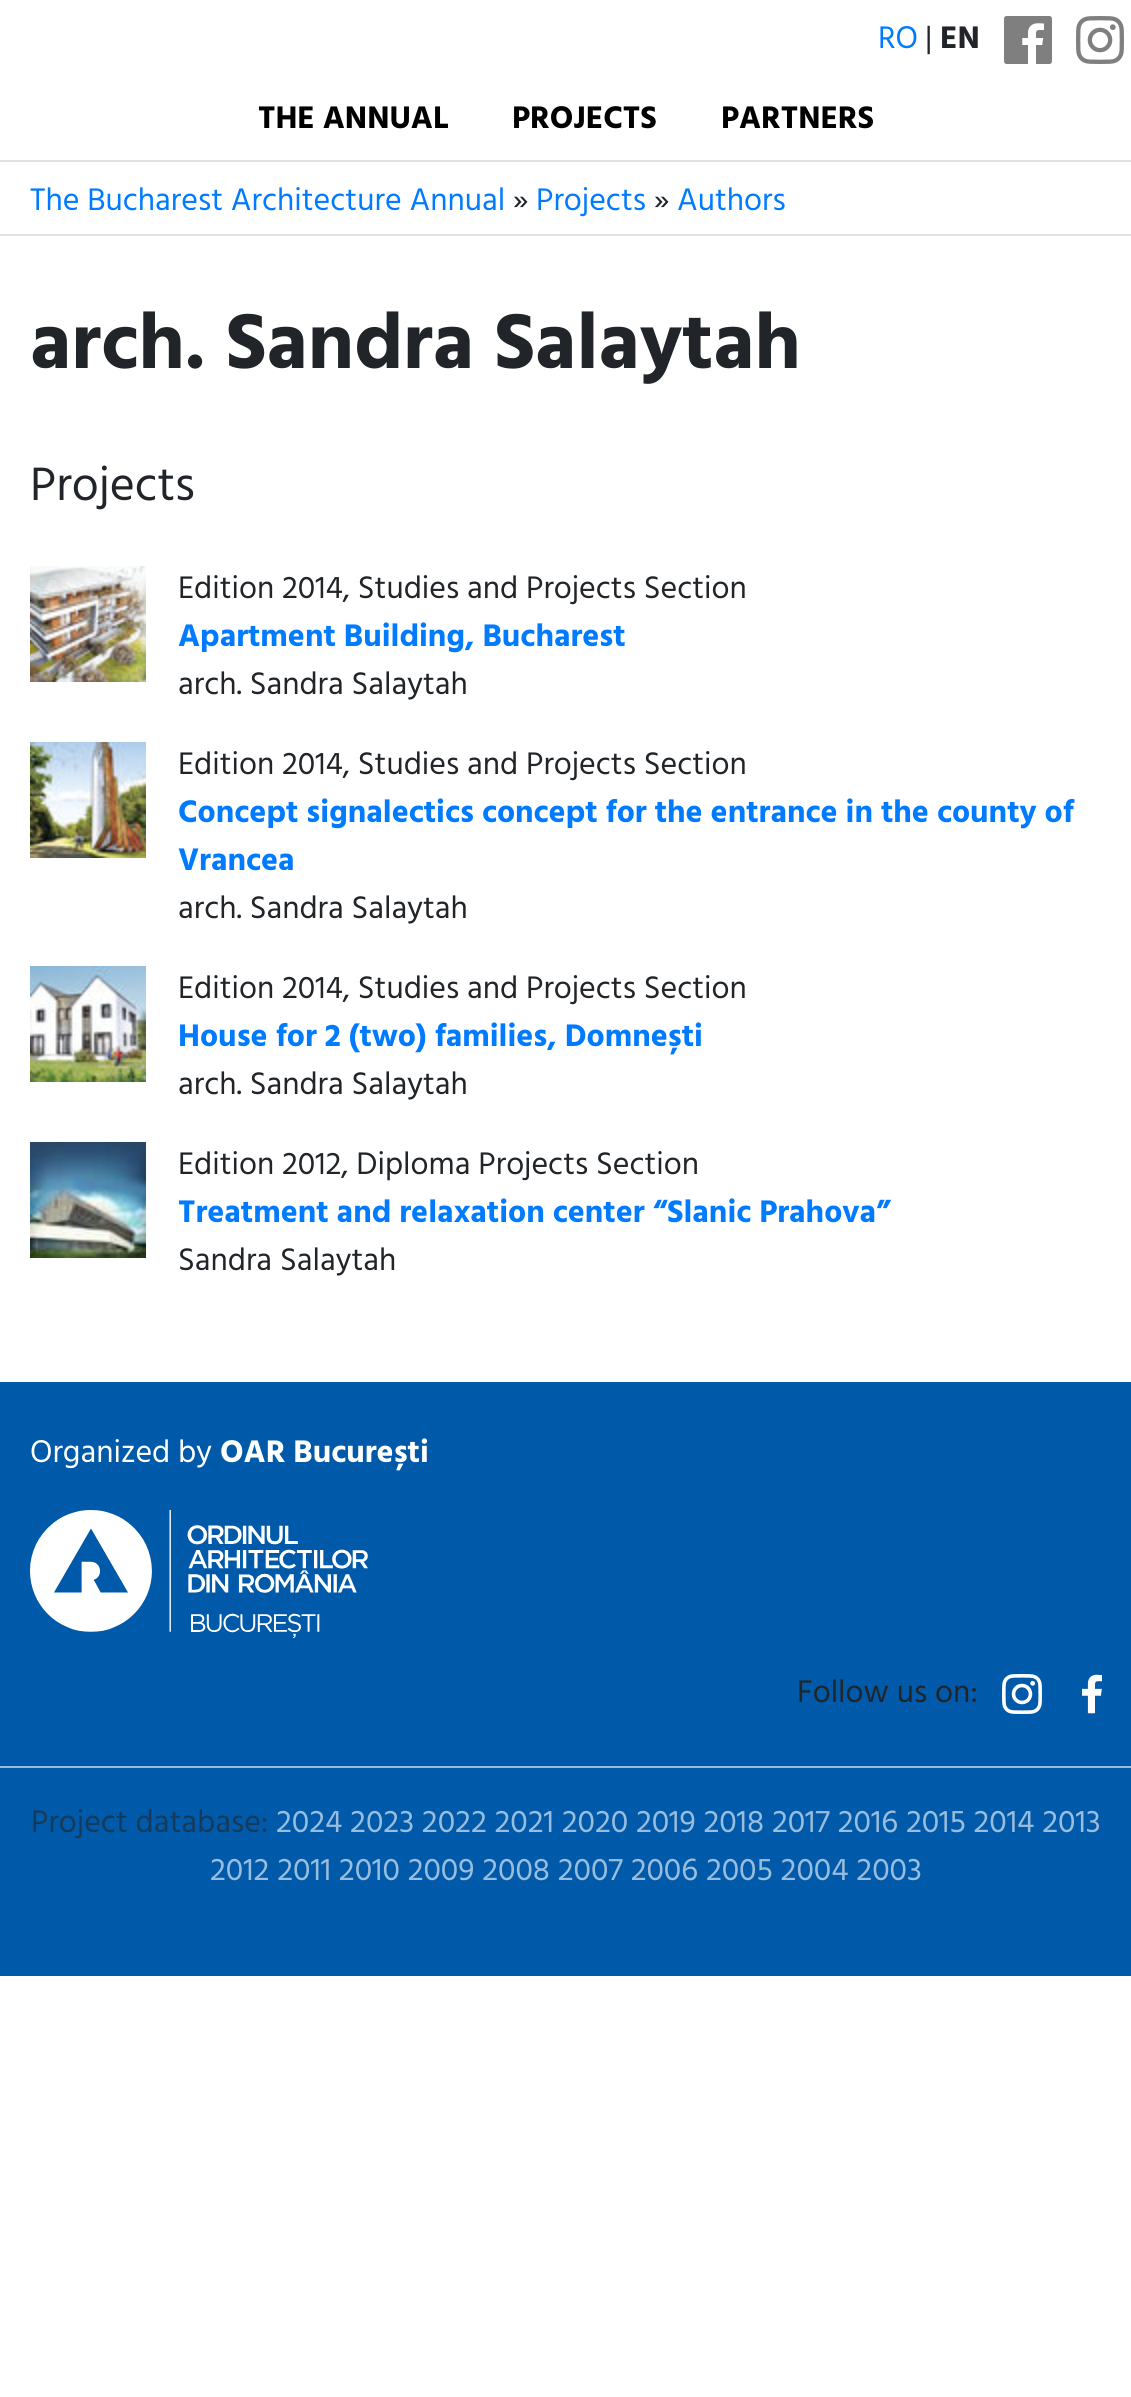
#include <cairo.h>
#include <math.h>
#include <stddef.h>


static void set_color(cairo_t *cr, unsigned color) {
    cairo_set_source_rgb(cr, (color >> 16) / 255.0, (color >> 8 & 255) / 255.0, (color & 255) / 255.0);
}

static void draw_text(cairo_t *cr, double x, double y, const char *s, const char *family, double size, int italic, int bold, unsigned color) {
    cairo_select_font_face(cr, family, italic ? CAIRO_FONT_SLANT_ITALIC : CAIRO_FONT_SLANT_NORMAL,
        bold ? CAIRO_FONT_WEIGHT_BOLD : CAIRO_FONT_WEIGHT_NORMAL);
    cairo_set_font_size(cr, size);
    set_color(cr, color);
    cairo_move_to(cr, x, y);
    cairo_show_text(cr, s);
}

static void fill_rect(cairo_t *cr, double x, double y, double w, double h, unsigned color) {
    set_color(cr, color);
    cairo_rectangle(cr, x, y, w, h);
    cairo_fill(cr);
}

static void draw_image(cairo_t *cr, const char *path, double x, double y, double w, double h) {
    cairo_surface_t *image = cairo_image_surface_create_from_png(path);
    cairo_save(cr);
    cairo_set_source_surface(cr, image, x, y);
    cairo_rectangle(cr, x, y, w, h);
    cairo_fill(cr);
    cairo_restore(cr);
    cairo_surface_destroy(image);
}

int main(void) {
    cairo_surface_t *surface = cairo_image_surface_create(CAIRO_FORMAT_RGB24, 1131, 2397);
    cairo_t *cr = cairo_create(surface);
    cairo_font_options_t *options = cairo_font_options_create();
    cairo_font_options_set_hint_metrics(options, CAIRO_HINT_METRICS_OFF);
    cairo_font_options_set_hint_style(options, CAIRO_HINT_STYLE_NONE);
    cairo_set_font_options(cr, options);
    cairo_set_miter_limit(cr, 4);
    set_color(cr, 0xFFFFFF);
    cairo_paint(cr);
    draw_text(cr, 878, 48, "RO", "Hind", 32, 0, 0, 0x007BFF);
    draw_text(cr, 925, 48, "|", "Hind", 32, 0, 0, 0x212529);
    draw_text(cr, 940, 48, "EN", "Hind", 32, 0, 1, 0x212529);
    draw_image(cr, "assets/img1.png", 1004, 16, 48, 48);
    draw_image(cr, "assets/img2.png", 1076, 16, 48, 48);
    draw_text(cr, 258, 128, "THE ANNUAL", "Hind", 32, 0, 1, 0x000000);
    draw_text(cr, 512, 128, "PROJECTS", "Hind", 32, 0, 1, 0x000000);
    draw_text(cr, 721, 128, "PARTNERS", "Hind", 32, 0, 1, 0x000000);
    fill_rect(cr, 0, 160, 1131, 2, 0xDEE2E6);
    fill_rect(cr, 0, 234, 1131, 2, 0xDEE2E6);
    draw_text(cr, 30, 210, "The Bucharest Architecture Annual", "Hind", 32, 0, 0, 0x007BFF);
    draw_text(cr, 513, 210, "»", "Hind", 32, 0, 0, 0x212529);
    draw_text(cr, 536, 210, "Projects", "Hind", 32, 0, 0, 0x007BFF);
    draw_text(cr, 654, 210, "»", "Hind", 32, 0, 0, 0x212529);
    draw_text(cr, 677, 210, "Authors", "Hind", 32, 0, 0, 0x007BFF);
    draw_text(cr, 30, 368, "arch. Sandra Salaytah", "Hind", 80, 0, 1, 0x212529);
    draw_text(cr, 30, 500, "Projects", "Hind", 48, 0, 0, 0x212529);
    draw_image(cr, "assets/img3.png", 30, 566, 116, 116);
    draw_text(cr, 178, 598, "Edition 2014, Studies and Projects Section", "Hind", 32, 0, 0, 0x212529);
    draw_text(cr, 178, 646, "Apartment Building, Bucharest", "Hind", 32, 0, 1, 0x007BFF);
    draw_text(cr, 178, 694, "arch. Sandra Salaytah", "Hind", 32, 0, 0, 0x212529);
    draw_image(cr, "assets/img4.png", 30, 742, 116, 116);
    draw_text(cr, 178, 774, "Edition 2014, Studies and Projects Section", "Hind", 32, 0, 0, 0x212529);
    draw_text(cr, 178, 822, "Concept signalectics concept for the entrance in the county of", "Hind", 32, 0, 1, 0x007BFF);
    draw_text(cr, 178, 870, "Vrancea", "Hind", 32, 0, 1, 0x007BFF);
    draw_text(cr, 178, 918, "arch. Sandra Salaytah", "Hind", 32, 0, 0, 0x212529);
    draw_image(cr, "assets/img5.png", 30, 966, 116, 116);
    draw_text(cr, 178, 998, "Edition 2014, Studies and Projects Section", "Hind", 32, 0, 0, 0x212529);
    draw_text(cr, 178, 1046, "House for 2 (two) families, Domnești", "Hind", 32, 0, 1, 0x007BFF);
    draw_text(cr, 178, 1094, "arch. Sandra Salaytah", "Hind", 32, 0, 0, 0x212529);
    draw_image(cr, "assets/img6.png", 30, 1142, 116, 116);
    draw_text(cr, 178, 1174, "Edition 2012, Diploma Projects Section", "Hind", 32, 0, 0, 0x212529);
    draw_text(cr, 178, 1222, "Treatment and relaxation center “Slanic Prahova”", "Hind", 32, 0, 1, 0x007BFF);
    draw_text(cr, 178, 1270, "Sandra Salaytah", "Hind", 32, 0, 0, 0x212529);
    fill_rect(cr, 0, 1382, 1131, 594, 0x005AA9);
    draw_text(cr, 30, 1462, "Organized by", "Hind", 32, 0, 0, 0xFFFFFF);
    draw_text(cr, 220, 1462, "OAR București", "Hind", 32, 0, 1, 0xFFFFFF);
    draw_image(cr, "assets/img7.png", 30, 1510, 338, 128);
    draw_text(cr, 797, 1702, "Follow us on:", "Hind", 32, 0, 0, 0x212529);
    draw_image(cr, "assets/img8.png", 1002, 1674, 40, 40);
    draw_image(cr, "assets/img9.png", 1082, 1674, 20, 40);
    fill_rect(cr, 0, 1766, 1131, 2, 0x99BDDD);
    draw_text(cr, 31, 1832, "Project database:", "Hind", 32, 0, 0, 0x143A5C);
    draw_text(cr, 276, 1832, "2024 2023 2022 2021 2020 2019 2018 2017 2016 2015 2014 2013", "Hind", 32, 0, 0, 0x99BDDD);
    draw_text(cr, 210, 1880, "2012 2011 2010 2009 2008 2007 2006 2005 2004 2003", "Hind", 32, 0, 0, 0x99BDDD);
    cairo_surface_write_to_png(surface, "output.png");
    cairo_font_options_destroy(options);
    cairo_destroy(cr);
    cairo_surface_destroy(surface);
    return 0;
}
